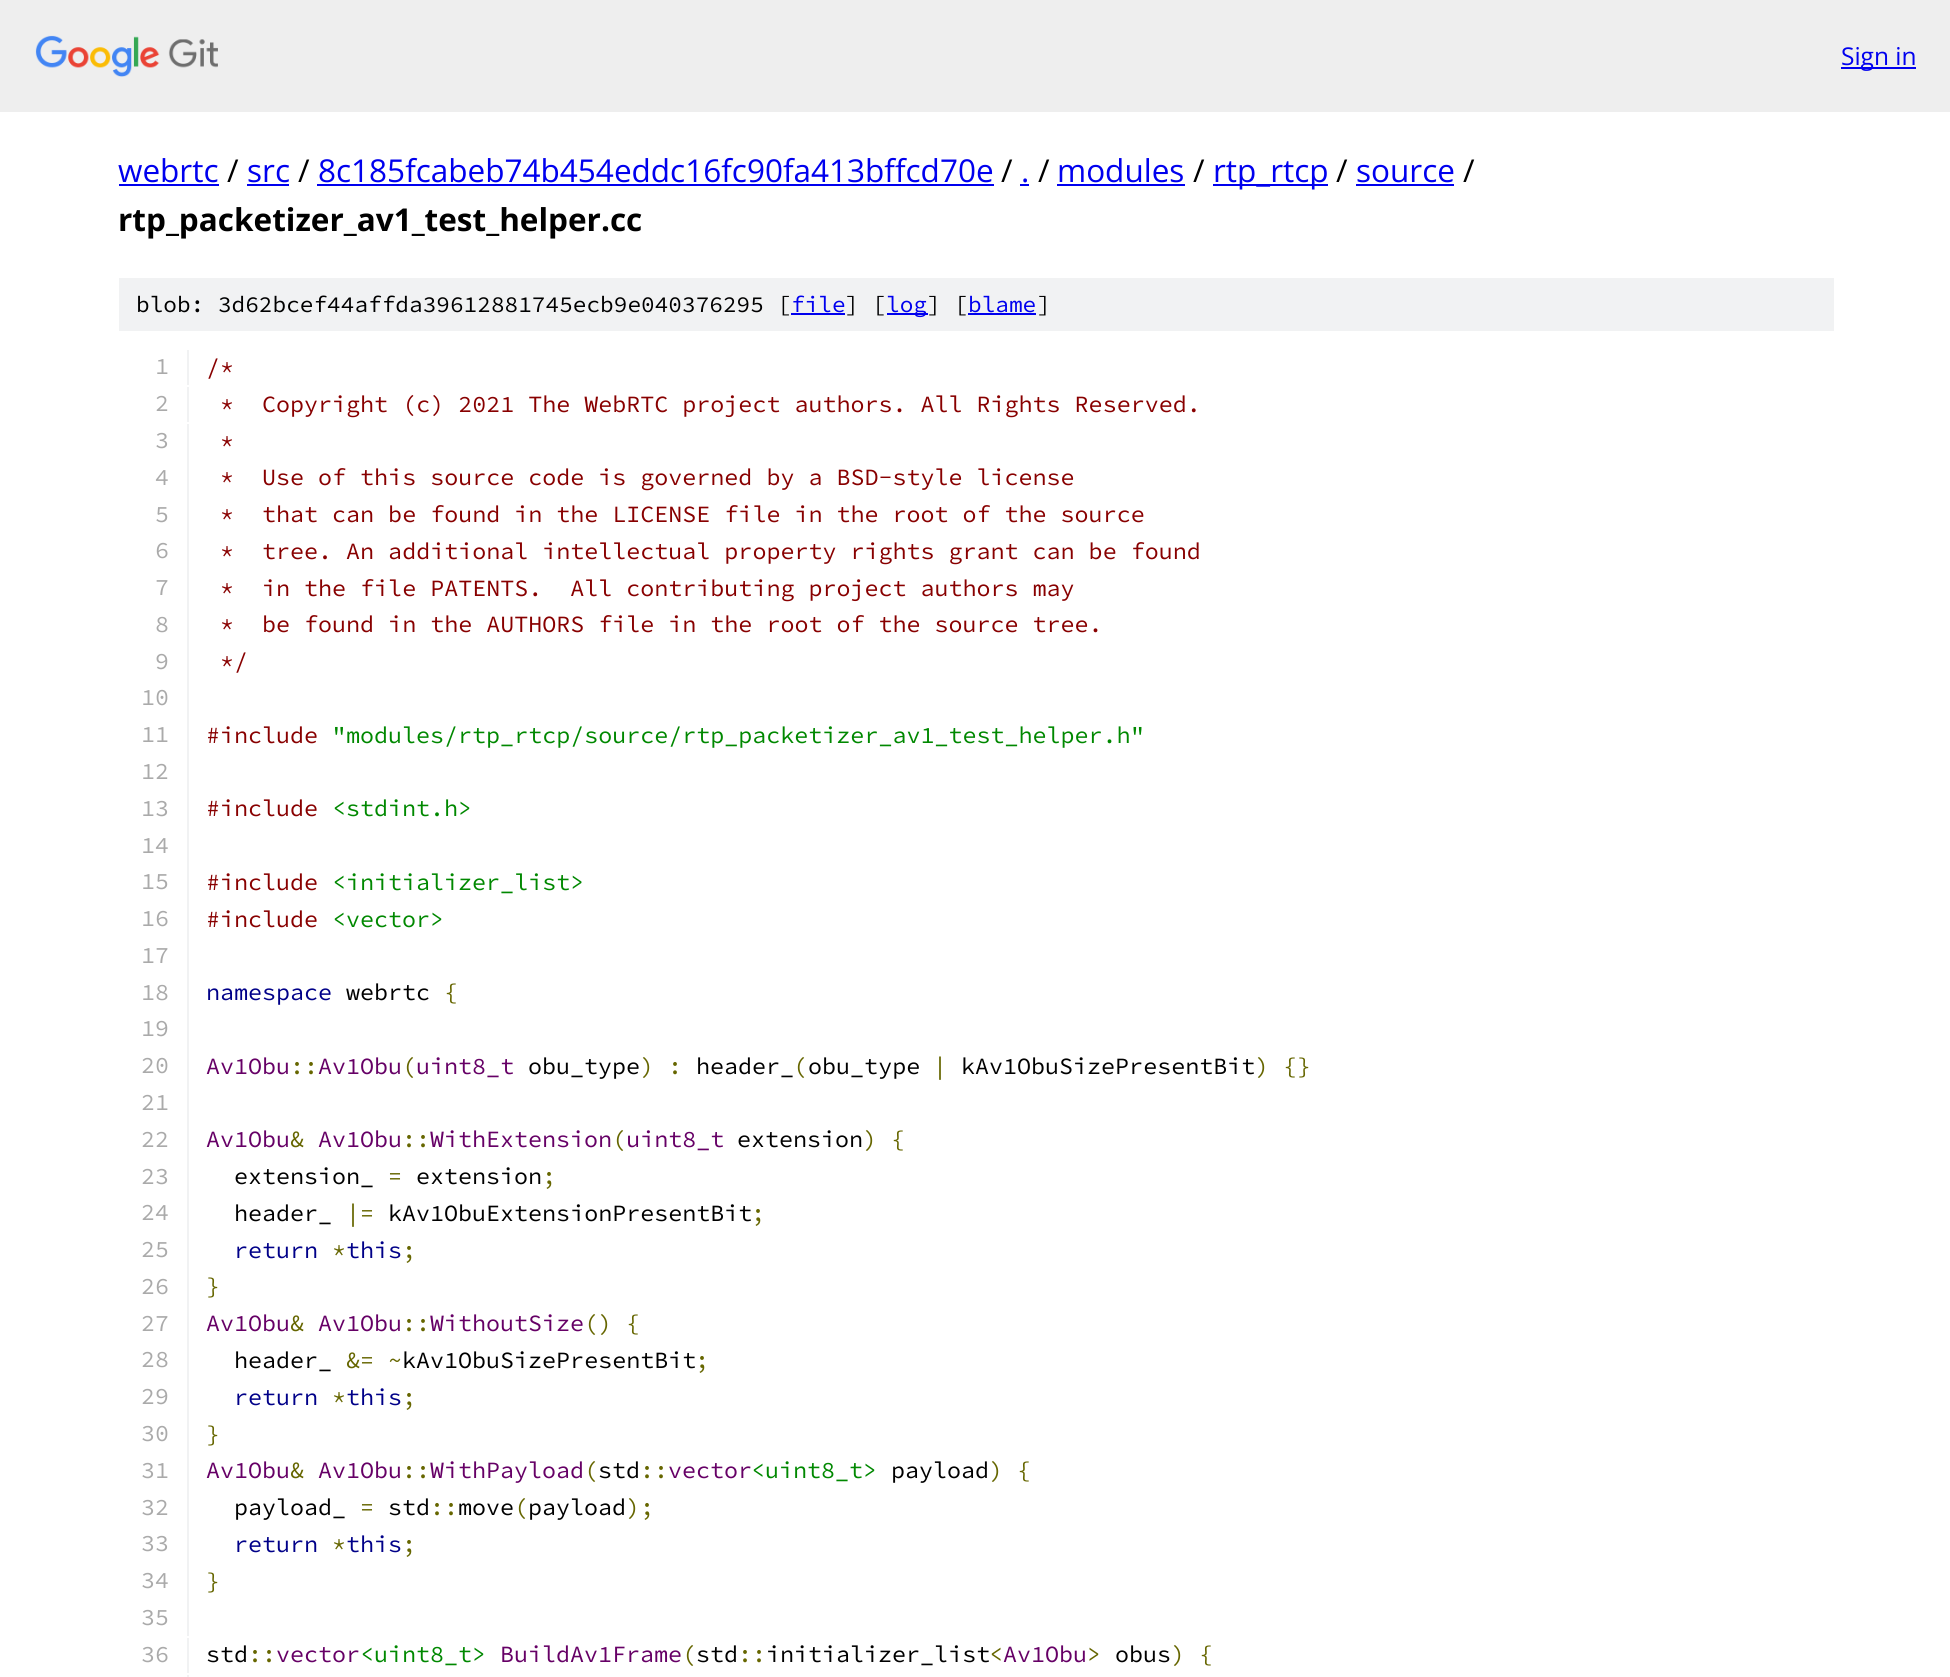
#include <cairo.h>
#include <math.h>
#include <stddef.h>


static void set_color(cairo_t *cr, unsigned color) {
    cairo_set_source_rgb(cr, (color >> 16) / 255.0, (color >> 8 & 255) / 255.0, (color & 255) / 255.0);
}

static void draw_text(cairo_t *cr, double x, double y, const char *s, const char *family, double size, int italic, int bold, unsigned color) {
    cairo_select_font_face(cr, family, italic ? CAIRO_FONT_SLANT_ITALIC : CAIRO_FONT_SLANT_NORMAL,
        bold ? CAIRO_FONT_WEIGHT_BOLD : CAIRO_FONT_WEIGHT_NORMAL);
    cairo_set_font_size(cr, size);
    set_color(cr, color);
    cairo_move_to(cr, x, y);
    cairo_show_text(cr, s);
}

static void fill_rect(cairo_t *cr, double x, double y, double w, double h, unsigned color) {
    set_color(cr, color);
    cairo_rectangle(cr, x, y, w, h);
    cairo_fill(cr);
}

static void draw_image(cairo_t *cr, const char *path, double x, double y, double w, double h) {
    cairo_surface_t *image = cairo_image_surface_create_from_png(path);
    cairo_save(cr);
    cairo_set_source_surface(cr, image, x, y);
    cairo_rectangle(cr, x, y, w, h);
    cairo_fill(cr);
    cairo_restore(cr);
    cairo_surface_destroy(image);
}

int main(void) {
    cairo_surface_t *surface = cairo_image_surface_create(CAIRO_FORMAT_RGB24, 1950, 1677);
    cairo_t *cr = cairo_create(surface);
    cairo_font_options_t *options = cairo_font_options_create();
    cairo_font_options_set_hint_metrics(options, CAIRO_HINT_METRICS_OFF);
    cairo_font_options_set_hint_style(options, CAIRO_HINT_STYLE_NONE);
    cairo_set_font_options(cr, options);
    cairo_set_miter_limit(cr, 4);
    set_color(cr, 0xFFFFFF);
    cairo_paint(cr);
    fill_rect(cr, 0, 0, 1950, 112, 0xEEEEEE);
    draw_image(cr, "assets/img1.png", 35, 35, 183, 42);
    fill_rect(cr, 1841, 67, 75, 2, 0x0000EE);
    draw_text(cr, 1841, 65, "Sign in", "Open Sans", 24.5, 0, 0, 0x0000EE);
    draw_text(cr, 118, 182, "webrtc", "Open Sans", 31.5, 0, 0, 0x0000EE);
    fill_rect(cr, 119, 184, 100, 2, 0x0000EE);
    draw_text(cr, 227, 182, "/", "Open Sans", 31.5, 0, 0, 0x000000);
    draw_text(cr, 247, 182, "src", "Open Sans", 31.5, 0, 0, 0x0000EE);
    fill_rect(cr, 247, 184, 42, 2, 0x0000EE);
    draw_text(cr, 298, 182, "/", "Open Sans", 31.5, 0, 0, 0x000000);
    draw_text(cr, 318, 182, "8c185fcabeb74b454eddc16fc90fa413bffcd70e", "Open Sans", 31.5, 0, 0, 0x0000EE);
    fill_rect(cr, 317, 184, 677, 2, 0x0000EE);
    draw_text(cr, 1001, 182, "/", "Open Sans", 31.5, 0, 0, 0x000000);
    draw_text(cr, 1021, 182, ".", "Open Sans", 31.5, 0, 0, 0x0000EE);
    fill_rect(cr, 1020, 184, 9, 2, 0x0000EE);
    draw_text(cr, 1038, 182, "/", "Open Sans", 31.5, 0, 0, 0x000000);
    draw_text(cr, 1057, 182, "modules", "Open Sans", 31.5, 0, 0, 0x0000EE);
    fill_rect(cr, 1057, 184, 128, 2, 0x0000EE);
    draw_text(cr, 1193, 182, "/", "Open Sans", 31.5, 0, 0, 0x000000);
    fill_rect(cr, 1213, 184, 115, 2, 0x0000EE);
    draw_text(cr, 1213, 182, "rtp_rtcp", "Open Sans", 31.5, 0, 0, 0x0000EE);
    draw_text(cr, 1336, 182, "/", "Open Sans", 31.5, 0, 0, 0x000000);
    draw_text(cr, 1356, 182, "source", "Open Sans", 31.5, 0, 0, 0x0000EE);
    fill_rect(cr, 1356, 184, 98, 2, 0x0000EE);
    draw_text(cr, 1463, 182, "/", "Open Sans", 31.5, 0, 0, 0x000000);
    draw_text(cr, 118, 231, "rtp_packetizer_av1_test_helper.cc", "Open Sans", 31.5, 0, 1, 0x000000);
    fill_rect(cr, 119, 278, 1715, 53, 0xF1F2F3);
    draw_text(cr, 136, 312, "blob: 3d62bcef44affda39612881745ecb9e040376295 [", "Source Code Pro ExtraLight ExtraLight", 22.75, 0, 0, 0x000000);
    draw_text(cr, 791, 312, "file", "Source Code Pro ExtraLight ExtraLight", 22.75, 0, 0, 0x0000EE);
    fill_rect(cr, 791, 313, 54, 2, 0x0000EE);
    draw_text(cr, 845, 312, "] [", "Source Code Pro ExtraLight ExtraLight", 22.75, 0, 0, 0x000000);
    fill_rect(cr, 887, 313, 41, 2, 0x0000EE);
    draw_text(cr, 886, 312, "log", "Source Code Pro ExtraLight ExtraLight", 22.75, 0, 0, 0x0000EE);
    draw_text(cr, 927, 312, "] [", "Source Code Pro ExtraLight ExtraLight", 22.75, 0, 0, 0x000000);
    draw_text(cr, 968, 312, "blame", "Source Code Pro ExtraLight ExtraLight", 22.75, 0, 0, 0x0000EE);
    fill_rect(cr, 968, 313, 68, 2, 0x0000EE);
    draw_text(cr, 1037, 312, "]", "Source Code Pro ExtraLight ExtraLight", 22.75, 0, 0, 0x000000);
    fill_rect(cr, 187, 350, 2, 35, 0xF1F2F3);
    draw_text(cr, 155, 374, "1", "Source Code Pro ExtraLight ExtraLight", 23.35, 0, 0, 0xAAAAAA);
    draw_text(cr, 206, 375, "/*", "Source Code Pro ExtraLight ExtraLight", 23.35, 0, 0, 0x880000);
    fill_rect(cr, 187, 387, 2, 35, 0xF1F2F3);
    draw_text(cr, 155, 411, "2", "Source Code Pro ExtraLight ExtraLight", 23.35, 0, 0, 0xAAAAAA);
    draw_text(cr, 220, 412, "*  Copyright (c) 2021 The WebRTC project authors. All Rights Reserved.", "Source Code Pro ExtraLight ExtraLight", 23.35, 0, 0, 0x880000);
    fill_rect(cr, 187, 424, 2, 1212, 0xF1F2F3);
    draw_text(cr, 155, 448, "3", "Source Code Pro ExtraLight ExtraLight", 23.35, 0, 0, 0xAAAAAA);
    draw_text(cr, 220, 449, "*", "Source Code Pro ExtraLight ExtraLight", 23.35, 0, 0, 0x880000);
    draw_text(cr, 155, 485, "4", "Source Code Pro ExtraLight ExtraLight", 23.35, 0, 0, 0xAAAAAA);
    draw_text(cr, 220, 485, "*  Use of this source code is governed by a BSD-style license", "Source Code Pro ExtraLight ExtraLight", 23.35, 0, 0, 0x880000);
    draw_text(cr, 155, 522, "5", "Source Code Pro ExtraLight ExtraLight", 23.35, 0, 0, 0xAAAAAA);
    draw_text(cr, 220, 522, "*  that can be found in the LICENSE file in the root of the source", "Source Code Pro ExtraLight ExtraLight", 23.35, 0, 0, 0x880000);
    draw_text(cr, 155, 558, "6", "Source Code Pro ExtraLight ExtraLight", 23.35, 0, 0, 0xAAAAAA);
    draw_text(cr, 220, 559, "*  tree. An additional intellectual property rights grant can be found", "Source Code Pro ExtraLight ExtraLight", 23.35, 0, 0, 0x880000);
    draw_text(cr, 155, 595, "7", "Source Code Pro ExtraLight ExtraLight", 23.35, 0, 0, 0xAAAAAA);
    draw_text(cr, 220, 596, "*  in the file PATENTS.  All contributing project authors may", "Source Code Pro ExtraLight ExtraLight", 23.35, 0, 0, 0x880000);
    draw_text(cr, 155, 632, "8", "Source Code Pro ExtraLight ExtraLight", 23.35, 0, 0, 0xAAAAAA);
    draw_text(cr, 220, 632, "*  be found in the AUTHORS file in the root of the source tree.", "Source Code Pro ExtraLight ExtraLight", 23.35, 0, 0, 0x880000);
    draw_text(cr, 155, 669, "9", "Source Code Pro ExtraLight ExtraLight", 23.35, 0, 0, 0xAAAAAA);
    draw_text(cr, 220, 669, "*/", "Source Code Pro ExtraLight ExtraLight", 23.35, 0, 0, 0x880000);
    draw_text(cr, 141, 705, "10", "Source Code Pro ExtraLight ExtraLight", 23.35, 0, 0, 0xAAAAAA);
    draw_text(cr, 141, 742, "11", "Source Code Pro ExtraLight ExtraLight", 23.35, 0, 0, 0xAAAAAA);
    draw_text(cr, 206, 743, "#include", "Source Code Pro ExtraLight ExtraLight", 23.35, 0, 0, 0x880000);
    draw_text(cr, 332, 743, "\"modules/rtp_rtcp/source/rtp_packetizer_av1_test_helper.h\"", "Source Code Pro ExtraLight ExtraLight", 23.35, 0, 0, 0x008800);
    draw_text(cr, 141, 779, "12", "Source Code Pro ExtraLight ExtraLight", 23.35, 0, 0, 0xAAAAAA);
    draw_text(cr, 141, 816, "13", "Source Code Pro ExtraLight ExtraLight", 23.35, 0, 0, 0xAAAAAA);
    draw_text(cr, 206, 816, "#include", "Source Code Pro ExtraLight ExtraLight", 23.35, 0, 0, 0x880000);
    draw_text(cr, 332, 816, "<stdint.h>", "Source Code Pro ExtraLight ExtraLight", 23.35, 0, 0, 0x008800);
    draw_text(cr, 141, 853, "14", "Source Code Pro ExtraLight ExtraLight", 23.35, 0, 0, 0xAAAAAA);
    draw_text(cr, 141, 889, "15", "Source Code Pro ExtraLight ExtraLight", 23.35, 0, 0, 0xAAAAAA);
    draw_text(cr, 206, 890, "#include", "Source Code Pro ExtraLight ExtraLight", 23.35, 0, 0, 0x880000);
    draw_text(cr, 332, 890, "<initializer_list>", "Source Code Pro ExtraLight ExtraLight", 23.35, 0, 0, 0x008800);
    draw_text(cr, 141, 926, "16", "Source Code Pro ExtraLight ExtraLight", 23.35, 0, 0, 0xAAAAAA);
    draw_text(cr, 206, 927, "#include", "Source Code Pro ExtraLight ExtraLight", 23.35, 0, 0, 0x880000);
    draw_text(cr, 332, 927, "<vector>", "Source Code Pro ExtraLight ExtraLight", 23.35, 0, 0, 0x008800);
    draw_text(cr, 141, 963, "17", "Source Code Pro ExtraLight ExtraLight", 23.35, 0, 0, 0xAAAAAA);
    draw_text(cr, 141, 1000, "18", "Source Code Pro ExtraLight ExtraLight", 23.35, 0, 0, 0xAAAAAA);
    draw_text(cr, 206, 1000, "namespace", "Source Code Pro ExtraLight ExtraLight", 23.35, 0, 0, 0x000088);
    draw_text(cr, 346, 1000, "webrtc", "Source Code Pro ExtraLight ExtraLight", 23.35, 0, 0, 0x000000);
    draw_text(cr, 444, 1000, "{", "Source Code Pro ExtraLight ExtraLight", 23.35, 0, 0, 0x666600);
    draw_text(cr, 141, 1036, "19", "Source Code Pro ExtraLight ExtraLight", 23.35, 0, 0, 0xAAAAAA);
    draw_text(cr, 141, 1073, "20", "Source Code Pro ExtraLight ExtraLight", 23.35, 0, 0, 0xAAAAAA);
    draw_text(cr, 206, 1074, "Av1Obu", "Source Code Pro ExtraLight ExtraLight", 23.35, 0, 0, 0x660066);
    draw_text(cr, 318, 1074, "Av1Obu uint8_t", "Source Code Pro ExtraLight ExtraLight", 23.35, 0, 0, 0x660066);
    draw_text(cr, 402, 1074, "(", "Source Code Pro ExtraLight ExtraLight", 23.35, 0, 0, 0x666600);
    draw_text(cr, 640, 1074, ") :", "Source Code Pro ExtraLight ExtraLight", 23.35, 0, 0, 0x666600);
    draw_text(cr, 696, 1074, "header_ obu_type", "Source Code Pro ExtraLight ExtraLight", 23.35, 0, 0, 0x000000);
    draw_text(cr, 793, 1074, "(", "Source Code Pro ExtraLight ExtraLight", 23.35, 0, 0, 0x666600);
    draw_text(cr, 933, 1074, "|", "Source Code Pro ExtraLight ExtraLight", 23.35, 0, 0, 0x666600);
    draw_text(cr, 1255, 1074, ") {}", "Source Code Pro ExtraLight ExtraLight", 23.35, 0, 0, 0x666600);
    draw_text(cr, 290, 1074, "::", "Source Code Pro ExtraLight ExtraLight", 23.35, 0, 0, 0x666600);
    draw_text(cr, 528, 1074, "obu_type", "Source Code Pro ExtraLight ExtraLight", 23.35, 0, 0, 0x000000);
    draw_text(cr, 961, 1074, "kAv1ObuSizePresentBit", "Source Code Pro ExtraLight ExtraLight", 23.35, 0, 0, 0x000000);
    draw_text(cr, 141, 1110, "21", "Source Code Pro ExtraLight ExtraLight", 23.35, 0, 0, 0xAAAAAA);
    draw_text(cr, 141, 1147, "22", "Source Code Pro ExtraLight ExtraLight", 23.35, 0, 0, 0xAAAAAA);
    draw_text(cr, 206, 1147, "Av1Obu", "Source Code Pro ExtraLight ExtraLight", 23.35, 0, 0, 0x660066);
    draw_text(cr, 318, 1147, "Av1Obu", "Source Code Pro ExtraLight ExtraLight", 23.35, 0, 0, 0x660066);
    draw_text(cr, 430, 1147, "WithExtension uint8_t", "Source Code Pro ExtraLight ExtraLight", 23.35, 0, 0, 0x660066);
    draw_text(cr, 612, 1147, "(", "Source Code Pro ExtraLight ExtraLight", 23.35, 0, 0, 0x666600);
    draw_text(cr, 863, 1147, ") {", "Source Code Pro ExtraLight ExtraLight", 23.35, 0, 0, 0x666600);
    draw_text(cr, 290, 1147, "&", "Source Code Pro ExtraLight ExtraLight", 23.35, 0, 0, 0x666600);
    draw_text(cr, 402, 1147, "::", "Source Code Pro ExtraLight ExtraLight", 23.35, 0, 0, 0x666600);
    draw_text(cr, 737, 1147, "extension", "Source Code Pro ExtraLight ExtraLight", 23.35, 0, 0, 0x000000);
    draw_text(cr, 141, 1184, "23", "Source Code Pro ExtraLight ExtraLight", 23.35, 0, 0, 0xAAAAAA);
    draw_text(cr, 234, 1184, "extension_", "Source Code Pro ExtraLight ExtraLight", 23.35, 0, 0, 0x000000);
    draw_text(cr, 388, 1184, "=", "Source Code Pro ExtraLight ExtraLight", 23.35, 0, 0, 0x666600);
    draw_text(cr, 416, 1184, "extension", "Source Code Pro ExtraLight ExtraLight", 23.35, 0, 0, 0x000000);
    draw_text(cr, 542, 1184, ";", "Source Code Pro ExtraLight ExtraLight", 23.35, 0, 0, 0x666600);
    draw_text(cr, 141, 1220, "24", "Source Code Pro ExtraLight ExtraLight", 23.35, 0, 0, 0xAAAAAA);
    draw_text(cr, 234, 1221, "header_", "Source Code Pro ExtraLight ExtraLight", 23.35, 0, 0, 0x000000);
    draw_text(cr, 346, 1221, "|=", "Source Code Pro ExtraLight ExtraLight", 23.35, 0, 0, 0x666600);
    draw_text(cr, 388, 1221, "kAv1ObuExtensionPresentBit", "Source Code Pro ExtraLight ExtraLight", 23.35, 0, 0, 0x000000);
    draw_text(cr, 751, 1221, ";", "Source Code Pro ExtraLight ExtraLight", 23.35, 0, 0, 0x666600);
    draw_text(cr, 141, 1257, "25", "Source Code Pro ExtraLight ExtraLight", 23.35, 0, 0, 0xAAAAAA);
    draw_text(cr, 234, 1258, "return", "Source Code Pro ExtraLight ExtraLight", 23.35, 0, 0, 0x000088);
    draw_text(cr, 332, 1258, "*", "Source Code Pro ExtraLight ExtraLight", 23.35, 0, 0, 0x666600);
    draw_text(cr, 346, 1258, "this", "Source Code Pro ExtraLight ExtraLight", 23.35, 0, 0, 0x000088);
    draw_text(cr, 402, 1258, ";", "Source Code Pro ExtraLight ExtraLight", 23.35, 0, 0, 0x666600);
    draw_text(cr, 141, 1294, "26", "Source Code Pro ExtraLight ExtraLight", 23.35, 0, 0, 0xAAAAAA);
    draw_text(cr, 206, 1294, "}", "Source Code Pro ExtraLight ExtraLight", 23.35, 0, 0, 0x666600);
    draw_text(cr, 141, 1331, "27", "Source Code Pro ExtraLight ExtraLight", 23.35, 0, 0, 0xAAAAAA);
    draw_text(cr, 206, 1331, "Av1Obu", "Source Code Pro ExtraLight ExtraLight", 23.35, 0, 0, 0x660066);
    draw_text(cr, 290, 1331, "&", "Source Code Pro ExtraLight ExtraLight", 23.35, 0, 0, 0x666600);
    draw_text(cr, 318, 1331, "Av1Obu", "Source Code Pro ExtraLight ExtraLight", 23.35, 0, 0, 0x660066);
    draw_text(cr, 402, 1331, "::", "Source Code Pro ExtraLight ExtraLight", 23.35, 0, 0, 0x666600);
    draw_text(cr, 430, 1331, "WithoutSize", "Source Code Pro ExtraLight ExtraLight", 23.35, 0, 0, 0x660066);
    draw_text(cr, 584, 1331, "() {", "Source Code Pro ExtraLight ExtraLight", 23.35, 0, 0, 0x666600);
    draw_text(cr, 141, 1367, "28", "Source Code Pro ExtraLight ExtraLight", 23.35, 0, 0, 0xAAAAAA);
    draw_text(cr, 234, 1368, "header_", "Source Code Pro ExtraLight ExtraLight", 23.35, 0, 0, 0x000000);
    draw_text(cr, 346, 1368, "&= ~", "Source Code Pro ExtraLight ExtraLight", 23.35, 0, 0, 0x666600);
    draw_text(cr, 402, 1368, "kAv1ObuSizePresentBit", "Source Code Pro ExtraLight ExtraLight", 23.35, 0, 0, 0x000000);
    draw_text(cr, 695, 1368, ";", "Source Code Pro ExtraLight ExtraLight", 23.35, 0, 0, 0x666600);
    draw_text(cr, 141, 1404, "29", "Source Code Pro ExtraLight ExtraLight", 23.35, 0, 0, 0xAAAAAA);
    draw_text(cr, 234, 1405, "return", "Source Code Pro ExtraLight ExtraLight", 23.35, 0, 0, 0x000088);
    draw_text(cr, 332, 1405, "*", "Source Code Pro ExtraLight ExtraLight", 23.35, 0, 0, 0x666600);
    draw_text(cr, 346, 1405, "this", "Source Code Pro ExtraLight ExtraLight", 23.35, 0, 0, 0x000088);
    draw_text(cr, 402, 1405, ";", "Source Code Pro ExtraLight ExtraLight", 23.35, 0, 0, 0x666600);
    draw_text(cr, 141, 1441, "30", "Source Code Pro ExtraLight ExtraLight", 23.35, 0, 0, 0xAAAAAA);
    draw_text(cr, 206, 1442, "}", "Source Code Pro ExtraLight ExtraLight", 23.35, 0, 0, 0x666600);
    draw_text(cr, 141, 1478, "31", "Source Code Pro ExtraLight ExtraLight", 23.35, 0, 0, 0xAAAAAA);
    draw_text(cr, 206, 1478, "Av1Obu", "Source Code Pro ExtraLight ExtraLight", 23.35, 0, 0, 0x660066);
    draw_text(cr, 290, 1478, "&", "Source Code Pro ExtraLight ExtraLight", 23.35, 0, 0, 0x666600);
    draw_text(cr, 318, 1478, "Av1Obu", "Source Code Pro ExtraLight ExtraLight", 23.35, 0, 0, 0x660066);
    draw_text(cr, 402, 1478, "::", "Source Code Pro ExtraLight ExtraLight", 23.35, 0, 0, 0x666600);
    draw_text(cr, 430, 1478, "WithPayload", "Source Code Pro ExtraLight ExtraLight", 23.35, 0, 0, 0x660066);
    draw_text(cr, 584, 1478, "(", "Source Code Pro ExtraLight ExtraLight", 23.35, 0, 0, 0x666600);
    draw_text(cr, 598, 1478, "std", "Source Code Pro ExtraLight ExtraLight", 23.35, 0, 0, 0x000000);
    draw_text(cr, 640, 1478, "::", "Source Code Pro ExtraLight ExtraLight", 23.35, 0, 0, 0x666600);
    draw_text(cr, 668, 1478, "vector", "Source Code Pro ExtraLight ExtraLight", 23.35, 0, 0, 0x660066);
    draw_text(cr, 751, 1478, "<uint8_t>", "Source Code Pro ExtraLight ExtraLight", 23.35, 0, 0, 0x008800);
    draw_text(cr, 891, 1478, "payload", "Source Code Pro ExtraLight ExtraLight", 23.35, 0, 0, 0x000000);
    draw_text(cr, 989, 1478, ") {", "Source Code Pro ExtraLight ExtraLight", 23.35, 0, 0, 0x666600);
    draw_text(cr, 141, 1515, "32", "Source Code Pro ExtraLight ExtraLight", 23.35, 0, 0, 0xAAAAAA);
    draw_text(cr, 234, 1515, "payload_", "Source Code Pro ExtraLight ExtraLight", 23.35, 0, 0, 0x000000);
    draw_text(cr, 388, 1515, "std", "Source Code Pro ExtraLight ExtraLight", 23.35, 0, 0, 0x000000);
    draw_text(cr, 458, 1515, "move payload", "Source Code Pro ExtraLight ExtraLight", 23.35, 0, 0, 0x000000);
    draw_text(cr, 514, 1515, "(", "Source Code Pro ExtraLight ExtraLight", 23.35, 0, 0, 0x666600);
    draw_text(cr, 626, 1515, ");", "Source Code Pro ExtraLight ExtraLight", 23.35, 0, 0, 0x666600);
    draw_text(cr, 360, 1515, "=", "Source Code Pro ExtraLight ExtraLight", 23.35, 0, 0, 0x666600);
    draw_text(cr, 430, 1515, "::", "Source Code Pro ExtraLight ExtraLight", 23.35, 0, 0, 0x666600);
    draw_text(cr, 141, 1551, "33", "Source Code Pro ExtraLight ExtraLight", 23.35, 0, 0, 0xAAAAAA);
    draw_text(cr, 234, 1552, "return", "Source Code Pro ExtraLight ExtraLight", 23.35, 0, 0, 0x000088);
    draw_text(cr, 332, 1552, "*", "Source Code Pro ExtraLight ExtraLight", 23.35, 0, 0, 0x666600);
    draw_text(cr, 346, 1552, "this", "Source Code Pro ExtraLight ExtraLight", 23.35, 0, 0, 0x000088);
    draw_text(cr, 402, 1552, ";", "Source Code Pro ExtraLight ExtraLight", 23.35, 0, 0, 0x666600);
    draw_text(cr, 141, 1588, "34", "Source Code Pro ExtraLight ExtraLight", 23.35, 0, 0, 0xAAAAAA);
    draw_text(cr, 206, 1589, "}", "Source Code Pro ExtraLight ExtraLight", 23.35, 0, 0, 0x666600);
    draw_text(cr, 141, 1625, "35", "Source Code Pro ExtraLight ExtraLight", 23.35, 0, 0, 0xAAAAAA);
    fill_rect(cr, 187, 1638, 2, 35, 0xF1F2F3);
    draw_text(cr, 141, 1662, "36", "Source Code Pro ExtraLight ExtraLight", 23.35, 0, 0, 0xAAAAAA);
    draw_text(cr, 206, 1662, "std", "Source Code Pro ExtraLight ExtraLight", 23.35, 0, 0, 0x000000);
    draw_text(cr, 248, 1662, "::", "Source Code Pro ExtraLight ExtraLight", 23.35, 0, 0, 0x666600);
    draw_text(cr, 276, 1662, "vector", "Source Code Pro ExtraLight ExtraLight", 23.35, 0, 0, 0x660066);
    draw_text(cr, 360, 1662, "<uint8_t>", "Source Code Pro ExtraLight ExtraLight", 23.35, 0, 0, 0x008800);
    draw_text(cr, 500, 1662, "BuildAv1Frame", "Source Code Pro ExtraLight ExtraLight", 23.35, 0, 0, 0x660066);
    draw_text(cr, 682, 1662, "(", "Source Code Pro ExtraLight ExtraLight", 23.35, 0, 0, 0x666600);
    draw_text(cr, 696, 1662, "std", "Source Code Pro ExtraLight ExtraLight", 23.35, 0, 0, 0x000000);
    draw_text(cr, 738, 1662, "::", "Source Code Pro ExtraLight ExtraLight", 23.35, 0, 0, 0x666600);
    draw_text(cr, 766, 1662, "initializer_list", "Source Code Pro ExtraLight ExtraLight", 23.35, 0, 0, 0x000000);
    draw_text(cr, 989, 1662, "<", "Source Code Pro ExtraLight ExtraLight", 23.35, 0, 0, 0x666600);
    draw_text(cr, 1003, 1662, "Av1Obu", "Source Code Pro ExtraLight ExtraLight", 23.35, 0, 0, 0x660066);
    draw_text(cr, 1087, 1662, ">", "Source Code Pro ExtraLight ExtraLight", 23.35, 0, 0, 0x666600);
    draw_text(cr, 1115, 1662, "obus", "Source Code Pro ExtraLight ExtraLight", 23.35, 0, 0, 0x000000);
    draw_text(cr, 1171, 1662, ") {", "Source Code Pro ExtraLight ExtraLight", 23.35, 0, 0, 0x666600);
    fill_rect(cr, 187, 1675, 2, 2, 0xF1F2F3);
    cairo_surface_write_to_png(surface, "output.png");
    cairo_font_options_destroy(options);
    cairo_destroy(cr);
    cairo_surface_destroy(surface);
    return 0;
}
